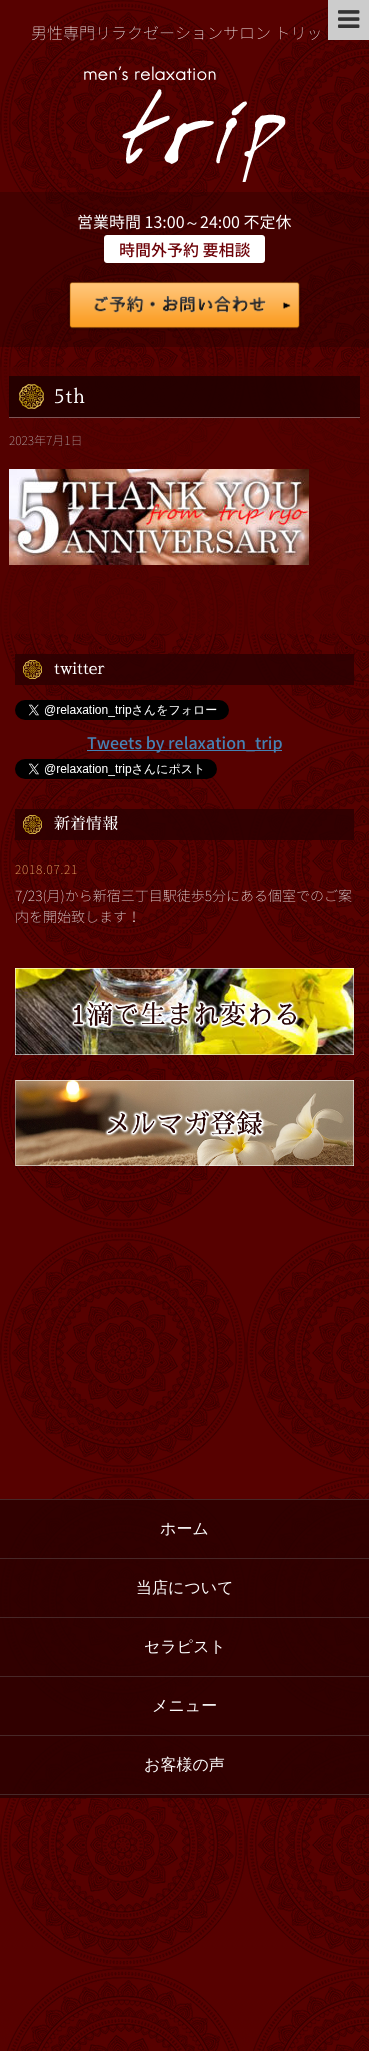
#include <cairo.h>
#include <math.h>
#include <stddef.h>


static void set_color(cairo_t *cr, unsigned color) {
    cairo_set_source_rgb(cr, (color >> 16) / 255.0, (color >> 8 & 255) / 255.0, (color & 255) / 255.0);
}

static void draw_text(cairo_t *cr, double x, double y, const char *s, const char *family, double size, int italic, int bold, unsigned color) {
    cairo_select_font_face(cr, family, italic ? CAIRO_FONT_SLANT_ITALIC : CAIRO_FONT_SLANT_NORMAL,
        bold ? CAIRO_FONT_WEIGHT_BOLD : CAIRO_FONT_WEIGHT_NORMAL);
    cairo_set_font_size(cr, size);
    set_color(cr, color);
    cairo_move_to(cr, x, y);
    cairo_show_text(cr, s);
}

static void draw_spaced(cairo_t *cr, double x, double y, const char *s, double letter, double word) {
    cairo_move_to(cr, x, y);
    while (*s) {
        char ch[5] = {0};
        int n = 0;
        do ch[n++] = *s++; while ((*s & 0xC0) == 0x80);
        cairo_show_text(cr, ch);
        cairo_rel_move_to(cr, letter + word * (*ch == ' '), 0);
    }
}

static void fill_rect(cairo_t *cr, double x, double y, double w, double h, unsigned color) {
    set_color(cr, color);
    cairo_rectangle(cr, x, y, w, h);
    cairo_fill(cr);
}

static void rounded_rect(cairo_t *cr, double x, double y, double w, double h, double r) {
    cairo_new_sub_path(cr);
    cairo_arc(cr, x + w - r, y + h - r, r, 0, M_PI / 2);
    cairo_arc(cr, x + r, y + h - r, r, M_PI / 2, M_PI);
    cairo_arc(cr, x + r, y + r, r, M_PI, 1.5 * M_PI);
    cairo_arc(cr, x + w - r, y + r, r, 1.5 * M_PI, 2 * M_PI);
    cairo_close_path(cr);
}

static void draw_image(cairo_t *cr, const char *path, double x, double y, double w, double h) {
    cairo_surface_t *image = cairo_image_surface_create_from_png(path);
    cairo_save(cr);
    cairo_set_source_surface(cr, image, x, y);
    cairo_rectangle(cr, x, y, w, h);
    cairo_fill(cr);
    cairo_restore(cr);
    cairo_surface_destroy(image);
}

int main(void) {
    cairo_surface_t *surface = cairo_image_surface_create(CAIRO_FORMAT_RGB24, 369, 2051);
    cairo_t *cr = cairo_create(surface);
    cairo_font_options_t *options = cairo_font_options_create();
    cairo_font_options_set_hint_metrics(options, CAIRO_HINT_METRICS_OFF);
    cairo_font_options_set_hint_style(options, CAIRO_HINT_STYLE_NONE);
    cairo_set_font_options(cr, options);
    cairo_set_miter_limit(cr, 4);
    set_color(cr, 0xFFFFFF);
    cairo_paint(cr);
    draw_image(cr, "assets/img1.png", 0, 0, 369, 2051);
    fill_rect(cr, 328, 0, 41, 40, 0xCCCCCC);
    draw_image(cr, "assets/img2.png", 338, 10, 22, 18);
    draw_text(cr, 31, 39, "男性専門リラクゼーションサロン トリッ", "Noto Sans JP Thin", 16, 0, 0, 0xFFFFFF);
    draw_image(cr, "assets/img3.png", 84, 66, 202, 116);
    cairo_set_source_rgba(cr, 0.165, 0.008, 0.008, 0.4);
    cairo_rectangle(cr, 0, 192, 369, 155);
    cairo_fill(cr);
    draw_text(cr, 77, 228, "営業時間 13:00", "Noto Sans JP", 16, 0, 0, 0xFFFFFF);
    draw_text(cr, 184, 228, "～", "WenQuanYi Zen Hei Medium", 16, 0, 0, 0xFFFFFF);
    draw_text(cr, 200, 228, "24:00 不定休", "Noto Sans JP", 16, 0, 0, 0xFFFFFF);
    rounded_rect(cr, 104, 235, 161, 28, 3);
    cairo_fill(cr);
    draw_text(cr, 119, 256, "時間外予約 要相談", "Noto Sans JP Medium", 16, 0, 0, 0x6D0107);
    draw_image(cr, "assets/img4.png", 67, 281, 235, 50);
    cairo_set_source_rgba(cr, 0.322, 0.008, 0, 0.6);
    cairo_rectangle(cr, 0, 367, 369, 267);
    cairo_fill(cr);
    draw_image(cr, "assets/img5.png", 9, 376, 351, 41);
    fill_rect(cr, 9, 417, 351, 1, 0x7D5555);
    cairo_select_font_face(cr, "Sawarabi Mincho", CAIRO_FONT_SLANT_NORMAL, CAIRO_FONT_WEIGHT_NORMAL);
    cairo_set_font_size(cr, 19);
    set_color(cr, 0xFFFFFF);
    draw_spaced(cr, 54, 403, "5th", 0.75, 0);
    draw_text(cr, 9, 445, "2023年7月1日", "Noto Sans JP Thin", 12, 0, 0, 0xBDBDBD);
    draw_image(cr, "assets/img6.png", 9, 469, 300, 96);
    draw_image(cr, "assets/img7.png", 15, 654, 339, 31);
    draw_text(cr, 54, 674, "twitter", "Sawarabi Mincho", 16, 0, 0, 0xFFFFFF);
    draw_image(cr, "assets/img8.png", 15, 700, 214, 20);
    fill_rect(cr, 87, 750, 195, 1, 0x4682B4);
    draw_text(cr, 87, 749, "Tweets by relaxation_trip", "Noto Sans JP Medium", 16, 0, 0, 0x4682B4);
    draw_image(cr, "assets/img9.png", 15, 759, 202, 20);
    draw_image(cr, "assets/img10.png", 15, 809, 339, 31);
    draw_text(cr, 54, 829, "新着情報", "Sawarabi Mincho", 16, 0, 0, 0xFFFFFF);
    cairo_select_font_face(cr, "Noto Sans JP Thin", CAIRO_FONT_SLANT_NORMAL, CAIRO_FONT_WEIGHT_NORMAL);
    cairo_set_font_size(cr, 12);
    set_color(cr, 0xFFC273);
    draw_spaced(cr, 15, 874, "2018.07.21", 0.75, 0);
    draw_text(cr, 15, 901, "7/23(月)から新宿三丁目駅徒歩5分にある個室でのご案", "Noto Sans JP Thin", 14, 0, 0, 0xFFFFFF);
    draw_text(cr, 15, 922, "内を開始致します！", "Noto Sans JP Thin", 14, 0, 0, 0xFFFFFF);
    draw_image(cr, "assets/img11.png", 15, 968, 339, 87);
    draw_image(cr, "assets/img12.png", 15, 1080, 339, 86);
    cairo_set_source_rgba(cr, 0.176, 0, 0.004, 0.9);
    cairo_rectangle(cr, 0, 1500, 369, 298);
    cairo_fill(cr);
    fill_rect(cr, 0, 1499, 369, 1, 0x472828);
    fill_rect(cr, 0, 1558, 369, 1, 0x472828);
    draw_text(cr, 160, 1534, "ホーム", "WenQuanYi Zen Hei Medium", 16, 0, 0, 0xFFFFFF);
    fill_rect(cr, 0, 1617, 369, 1, 0x472828);
    draw_text(cr, 136, 1593, "当店について", "WenQuanYi Zen Hei Medium", 16, 0, 0, 0xFFFFFF);
    fill_rect(cr, 0, 1676, 369, 1, 0x472828);
    draw_text(cr, 144, 1652, "セラピスト", "WenQuanYi Zen Hei Medium", 16, 0, 0, 0xFFFFFF);
    fill_rect(cr, 0, 1735, 369, 1, 0x472828);
    draw_text(cr, 152, 1711, "メニュー", "WenQuanYi Zen Hei Medium", 16, 0, 0, 0xFFFFFF);
    fill_rect(cr, 0, 1794, 369, 1, 0x472828);
    draw_text(cr, 144, 1770, "お客様の声", "WenQuanYi Zen Hei Medium", 16, 0, 0, 0xFFFFFF);
    cairo_surface_write_to_png(surface, "output.png");
    cairo_font_options_destroy(options);
    cairo_destroy(cr);
    cairo_surface_destroy(surface);
    return 0;
}
